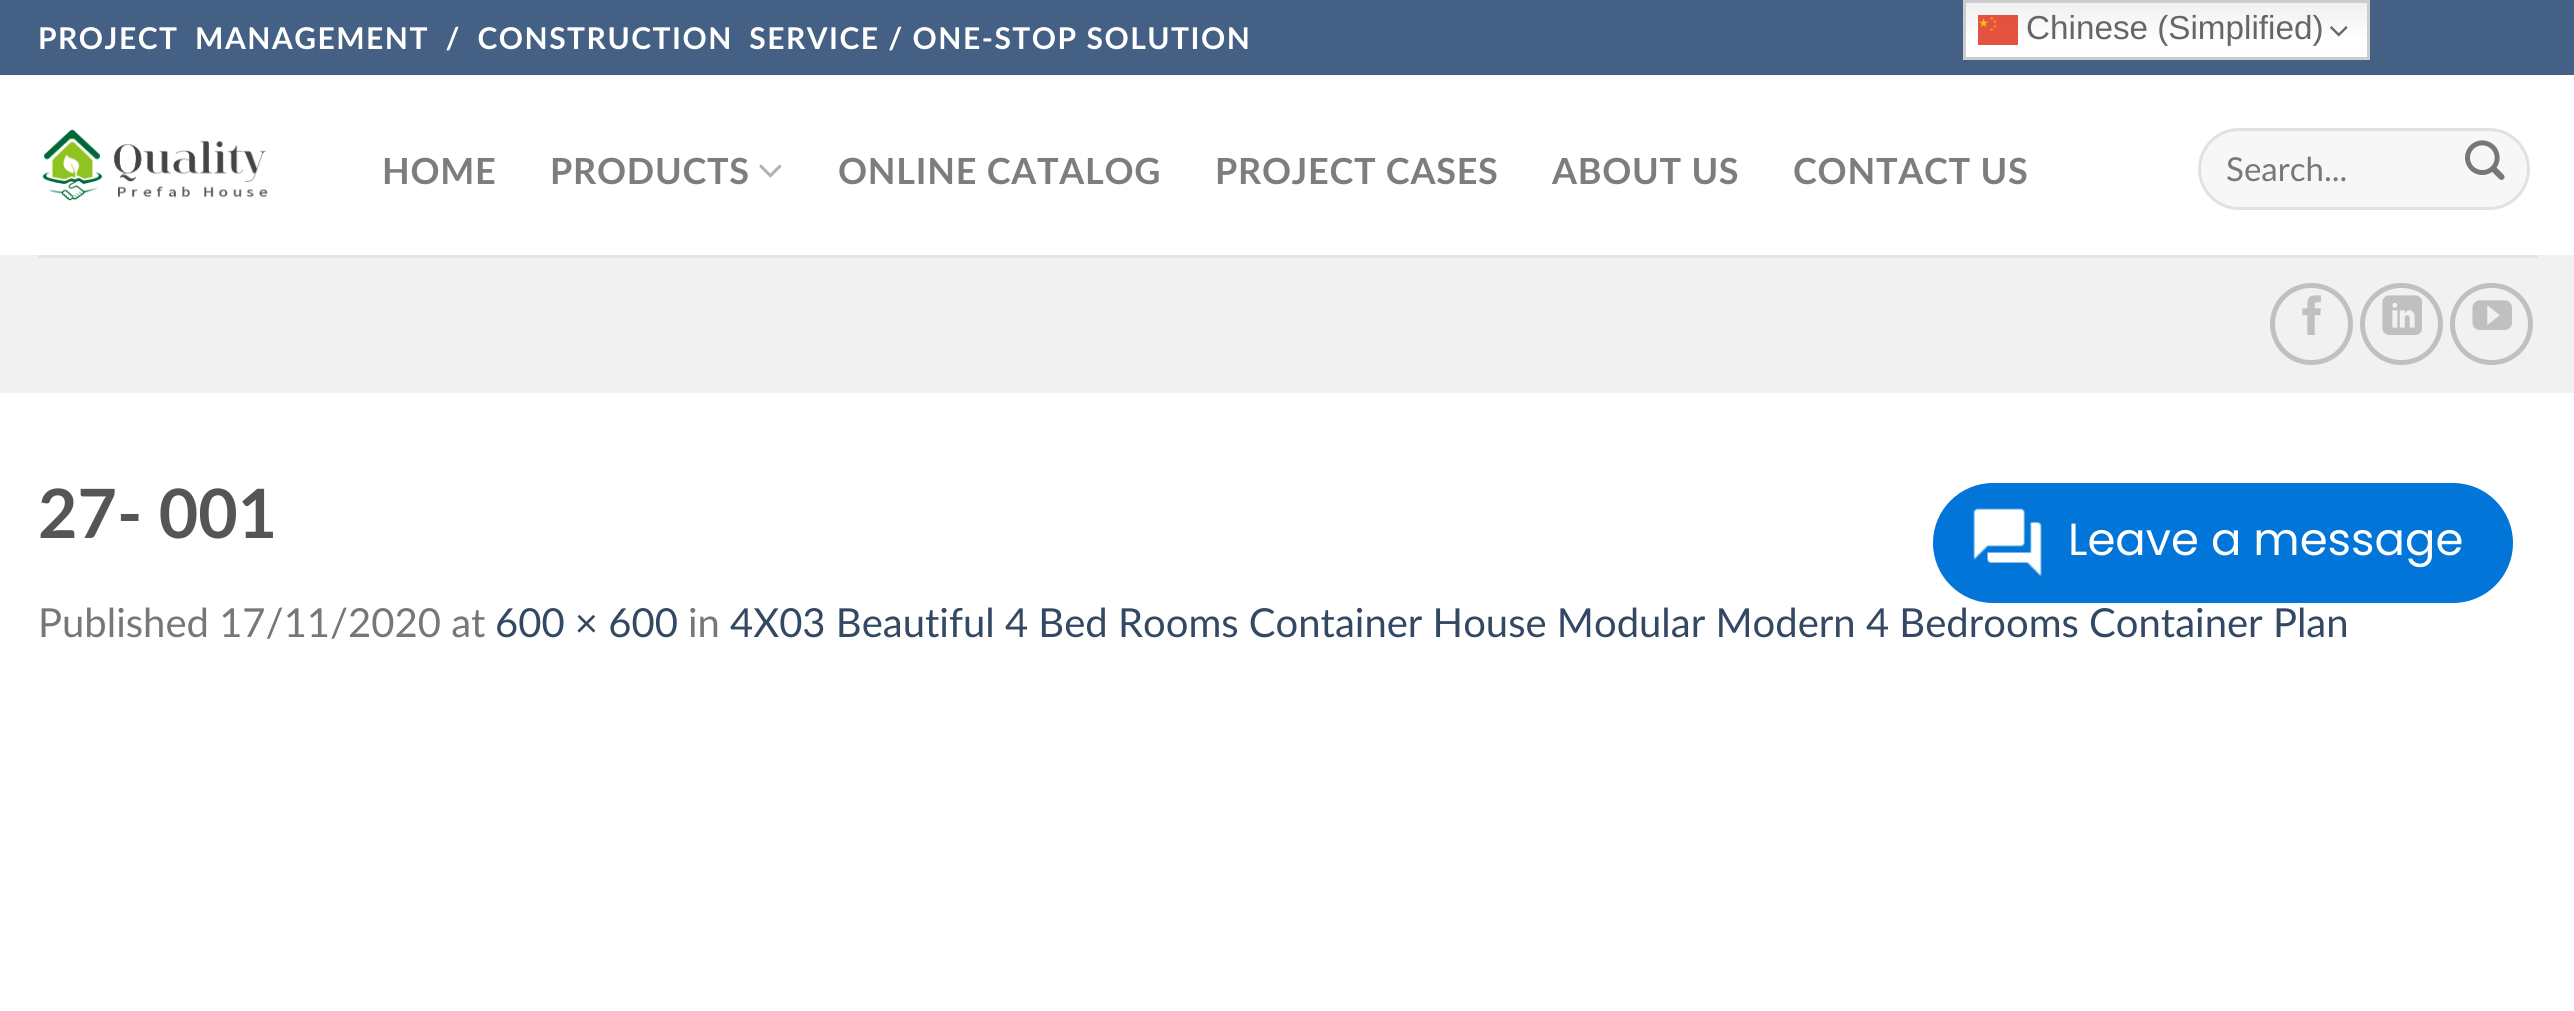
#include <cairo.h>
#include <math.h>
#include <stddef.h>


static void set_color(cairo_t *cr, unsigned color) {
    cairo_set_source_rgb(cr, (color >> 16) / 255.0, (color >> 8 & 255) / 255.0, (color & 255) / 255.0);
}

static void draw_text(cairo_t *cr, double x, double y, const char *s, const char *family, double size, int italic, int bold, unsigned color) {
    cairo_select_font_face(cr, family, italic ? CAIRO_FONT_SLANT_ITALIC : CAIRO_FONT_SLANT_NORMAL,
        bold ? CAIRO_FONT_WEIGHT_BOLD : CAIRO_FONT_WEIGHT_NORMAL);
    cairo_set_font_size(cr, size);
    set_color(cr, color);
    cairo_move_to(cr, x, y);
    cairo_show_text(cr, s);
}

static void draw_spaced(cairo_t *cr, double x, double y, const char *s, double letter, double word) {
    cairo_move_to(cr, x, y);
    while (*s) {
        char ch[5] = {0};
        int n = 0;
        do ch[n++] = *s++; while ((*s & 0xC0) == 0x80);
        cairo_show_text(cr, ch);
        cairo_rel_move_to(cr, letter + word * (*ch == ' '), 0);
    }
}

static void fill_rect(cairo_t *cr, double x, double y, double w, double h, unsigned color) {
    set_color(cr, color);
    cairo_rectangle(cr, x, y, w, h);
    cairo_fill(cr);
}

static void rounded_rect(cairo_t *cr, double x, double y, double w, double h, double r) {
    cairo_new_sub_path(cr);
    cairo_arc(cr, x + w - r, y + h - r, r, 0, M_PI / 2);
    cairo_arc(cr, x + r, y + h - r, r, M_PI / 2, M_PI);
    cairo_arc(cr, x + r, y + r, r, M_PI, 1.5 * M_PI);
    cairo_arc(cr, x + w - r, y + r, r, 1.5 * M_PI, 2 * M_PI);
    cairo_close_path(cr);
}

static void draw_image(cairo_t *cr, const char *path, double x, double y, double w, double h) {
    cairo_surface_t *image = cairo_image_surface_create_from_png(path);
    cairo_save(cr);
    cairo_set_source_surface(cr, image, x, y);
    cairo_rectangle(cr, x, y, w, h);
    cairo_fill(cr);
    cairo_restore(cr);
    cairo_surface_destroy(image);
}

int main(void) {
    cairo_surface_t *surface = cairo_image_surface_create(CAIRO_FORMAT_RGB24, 2574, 1011);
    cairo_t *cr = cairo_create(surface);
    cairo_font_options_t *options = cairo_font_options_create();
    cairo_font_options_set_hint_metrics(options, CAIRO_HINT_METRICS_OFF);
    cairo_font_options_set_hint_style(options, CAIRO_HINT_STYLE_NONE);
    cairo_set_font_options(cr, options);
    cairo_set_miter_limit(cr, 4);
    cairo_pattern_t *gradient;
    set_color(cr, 0xFFFFFF);
    cairo_paint(cr);
    fill_rect(cr, 0, 0, 2574, 75, 0x446084);
    gradient = cairo_pattern_create_linear(2166, 0, 2166, 60);
    cairo_pattern_add_color_stop_rgba(gradient, 0, 0.937, 0.937, 0.937, 1);
    cairo_pattern_add_color_stop_rgba(gradient, 0.7, 1, 1, 1, 1);
    cairo_set_source(cr, gradient);
    cairo_pattern_destroy(gradient);
    cairo_rectangle(cr, 1966, 3, 401, 54);
    cairo_fill(cr);
    cairo_rectangle(cr, 1964.5, 1.5, 404, 57);
    set_color(cr, 0xCCCCCC);
    cairo_set_line_width(cr, 3);
    cairo_stroke(cr);
    draw_image(cr, "assets/img1.png", 1978, 15, 40, 30);
    draw_text(cr, 2026, 39, "Chinese (Simplified)", "Liberation Sans", 33.25, 0, 0, 0x666666);
    draw_image(cr, "assets/img2.png", 2330, 26, 18, 11);
    cairo_select_font_face(cr, "Lato", CAIRO_FONT_SLANT_NORMAL, CAIRO_FONT_WEIGHT_BOLD);
    cairo_set_font_size(cr, 30);
    set_color(cr, 0xFFFFFF);
    draw_spaced(cr, 38, 49, "PROJECT MANAGEMENT / CONSTRUCTION SERVICE / ONE-STOP SOLUTION", 1.5, 0);
    draw_image(cr, "assets/img3.png", 42, 129, 226, 72);
    cairo_set_font_size(cr, 36);
    set_color(cr, 0x7D7D7D);
    draw_spaced(cr, 382, 184, "HOME", 0.75, 0);
    draw_spaced(cr, 550, 184, "PRODUCTS", 0.75, 0);
    draw_image(cr, "assets/img4.png", 759, 164, 23, 14);
    draw_spaced(cr, 838, 184, "ONLINE CATALOG", 0.75, 0);
    draw_spaced(cr, 1215, 184, "PROJECT CASES", 0.75, 0);
    draw_spaced(cr, 1552, 184, "ABOUT US", 0.75, 0);
    draw_spaced(cr, 1793, 184, "CONTACT US", 0.75, 0);
    set_color(cr, 0xF7F7F7);
    rounded_rect(cr, 2198, 128, 332, 82, 41);
    cairo_fill(cr);
    rounded_rect(cr, 2199.5, 129.5, 329, 79, 39.5);
    cairo_set_source_rgba(cr, 0, 0, 0, 0.09);
    cairo_stroke(cr);
    draw_text(cr, 2226, 181, "Search...", "Lato", 33, 0, 0, 0x777777);
    draw_image(cr, "assets/img5.png", 2465, 140, 40, 40);
    fill_rect(cr, 0, 255, 2574, 138, 0xF1F1F1);
    fill_rect(cr, 38, 255, 2500, 3, 0xE5E5E5);
    rounded_rect(cr, 2272.5, 285.5, 78, 77, 38.5);
    set_color(cr, 0xC0C0C0);
    cairo_set_line_width(cr, 5);
    cairo_stroke(cr);
    draw_image(cr, "assets/img6.png", 2302, 295, 19, 40);
    rounded_rect(cr, 2362.5, 285.5, 78, 77, 38.5);
    cairo_stroke(cr);
    draw_image(cr, "assets/img7.png", 2382, 295, 40, 40);
    rounded_rect(cr, 2452.5, 285.5, 78, 77, 38.5);
    cairo_stroke(cr);
    draw_image(cr, "assets/img8.png", 2472, 300, 40, 30);
    draw_text(cr, 38, 538, "27- 001", "Lato", 68, 0, 1, 0x555555);
    draw_text(cr, 38, 637, "Published 17/11/2020 at", "Lato", 40, 0, 0, 0x777777);
    draw_text(cr, 495, 637, "600 × 600", "Lato", 40, 0, 0, 0x334862);
    draw_text(cr, 688, 637, "in", "Lato", 40, 0, 0, 0x777777);
    draw_text(cr, 730, 637, "4X03 Beautiful 4 Bed Rooms Container House Modular Modern 4 Bedrooms Container Plan", "Lato", 40, 0, 0, 0x334862);
    set_color(cr, 0x0275D8);
    rounded_rect(cr, 1933, 483, 580, 120, 60);
    cairo_fill(cr);
    draw_image(cr, "assets/img9.png", 1973, 508, 69, 69);
    draw_text(cr, 2068, 555, "Leave a message", "Poppins", 45, 0, 0, 0xFFFFFF);
    cairo_surface_write_to_png(surface, "output.png");
    cairo_font_options_destroy(options);
    cairo_destroy(cr);
    cairo_surface_destroy(surface);
    return 0;
}
